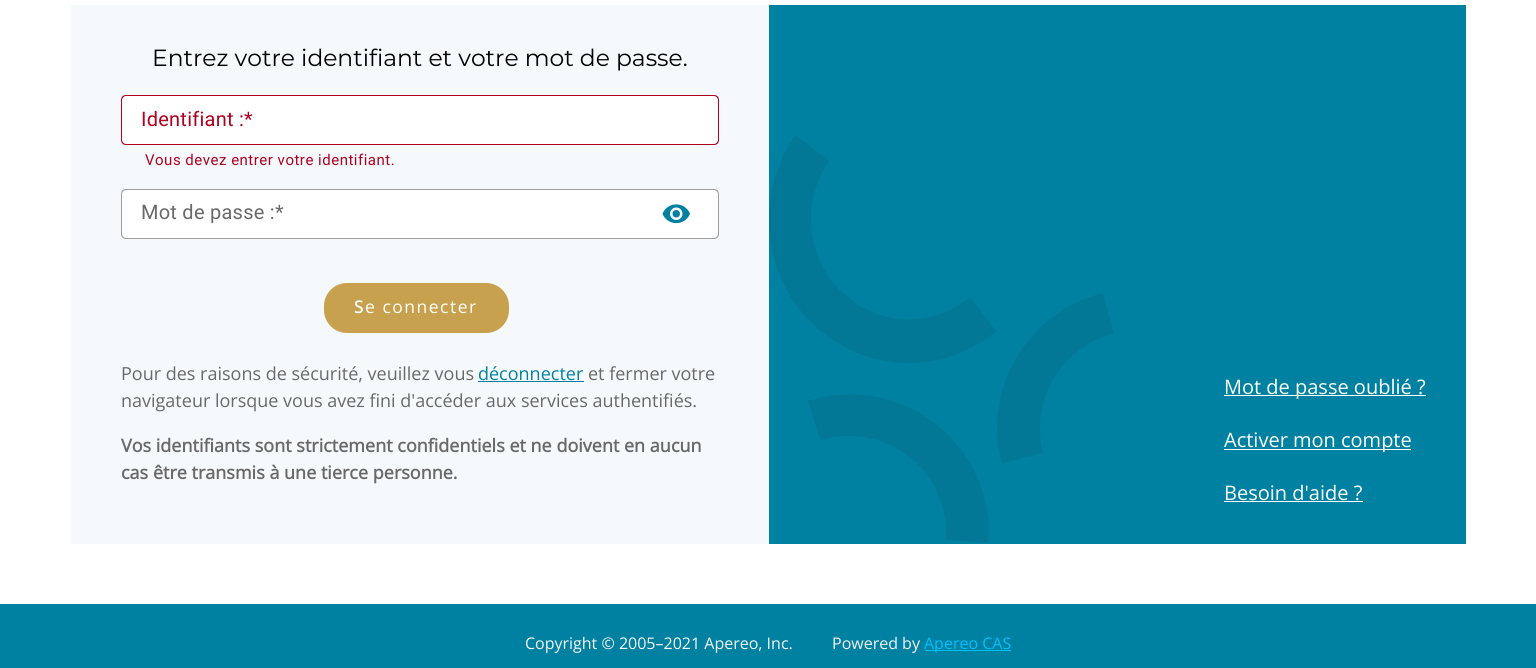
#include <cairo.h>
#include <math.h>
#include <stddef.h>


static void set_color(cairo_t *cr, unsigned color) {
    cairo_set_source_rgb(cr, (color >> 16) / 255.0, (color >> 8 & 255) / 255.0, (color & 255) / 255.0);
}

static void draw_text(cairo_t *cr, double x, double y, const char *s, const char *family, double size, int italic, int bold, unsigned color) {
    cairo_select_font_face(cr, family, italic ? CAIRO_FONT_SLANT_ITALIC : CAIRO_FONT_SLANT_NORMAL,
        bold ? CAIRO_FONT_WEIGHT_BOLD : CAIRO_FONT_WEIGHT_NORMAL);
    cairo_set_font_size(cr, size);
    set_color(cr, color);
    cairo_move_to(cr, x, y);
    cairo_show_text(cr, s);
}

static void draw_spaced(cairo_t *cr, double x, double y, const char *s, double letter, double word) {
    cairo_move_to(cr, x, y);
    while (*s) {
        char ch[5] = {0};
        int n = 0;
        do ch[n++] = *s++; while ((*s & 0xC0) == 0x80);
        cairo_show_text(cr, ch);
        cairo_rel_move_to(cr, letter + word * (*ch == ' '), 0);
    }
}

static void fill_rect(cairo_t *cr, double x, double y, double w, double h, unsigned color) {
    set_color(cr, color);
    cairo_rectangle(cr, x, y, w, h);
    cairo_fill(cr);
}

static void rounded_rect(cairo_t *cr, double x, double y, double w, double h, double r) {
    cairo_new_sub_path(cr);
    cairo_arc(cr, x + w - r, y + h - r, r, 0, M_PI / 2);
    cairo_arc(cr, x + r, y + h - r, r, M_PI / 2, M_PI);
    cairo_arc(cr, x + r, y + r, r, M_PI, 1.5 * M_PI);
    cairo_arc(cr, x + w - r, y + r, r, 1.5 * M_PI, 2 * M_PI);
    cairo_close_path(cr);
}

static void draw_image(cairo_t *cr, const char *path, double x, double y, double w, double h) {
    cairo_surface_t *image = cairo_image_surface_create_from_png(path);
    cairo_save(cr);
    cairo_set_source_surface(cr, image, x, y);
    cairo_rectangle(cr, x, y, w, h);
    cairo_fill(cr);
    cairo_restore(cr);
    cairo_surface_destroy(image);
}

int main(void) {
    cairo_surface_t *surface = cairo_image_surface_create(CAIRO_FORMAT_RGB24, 1536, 668);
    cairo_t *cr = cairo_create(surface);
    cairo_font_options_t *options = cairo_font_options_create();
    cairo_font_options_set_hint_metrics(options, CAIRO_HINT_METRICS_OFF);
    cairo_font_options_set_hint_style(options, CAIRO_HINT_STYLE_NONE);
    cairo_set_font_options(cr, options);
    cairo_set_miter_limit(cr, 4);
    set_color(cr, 0xFFFFFF);
    cairo_paint(cr);
    fill_rect(cr, 71, 5, 698, 539, 0xF5F9FB);
    draw_text(cr, 152, 66, "Entrez votre identifiant et votre mot de passe.", "Montserrat", 23.4, 0, 0, 0x000000);
    set_color(cr, 0xFFFFFF);
    cairo_new_path(cr);
    cairo_move_to(cr, 126, 95);
    cairo_line_to(cr, 714, 95);
    cairo_curve_to(cr, 717, 95, 719, 97, 719, 100);
    cairo_line_to(cr, 719, 145);
    cairo_line_to(cr, 121, 145);
    cairo_line_to(cr, 121, 100);
    cairo_curve_to(cr, 121, 97, 123, 95, 126, 95);
    cairo_close_path(cr);
    cairo_fill(cr);
    set_color(cr, 0xB00020);
    cairo_set_fill_rule(cr, CAIRO_FILL_RULE_EVEN_ODD);
    cairo_new_path(cr);
    cairo_move_to(cr, 126, 95);
    cairo_line_to(cr, 136, 95);
    cairo_line_to(cr, 136, 145);
    cairo_line_to(cr, 126, 145);
    cairo_curve_to(cr, 123, 145, 121, 143, 121, 140);
    cairo_line_to(cr, 121, 100);
    cairo_curve_to(cr, 121, 97, 123, 95, 126, 95);
    cairo_close_path(cr);
    cairo_move_to(cr, 126, 96);
    cairo_line_to(cr, 136, 96);
    cairo_line_to(cr, 136, 144);
    cairo_line_to(cr, 126, 144);
    cairo_curve_to(cr, 124, 144, 122, 142, 122, 140);
    cairo_line_to(cr, 122, 100);
    cairo_curve_to(cr, 122, 98, 124, 96, 126, 96);
    cairo_close_path(cr);
    cairo_fill(cr);
    fill_rect(cr, 136, 95, 112, 1, 0xB00020);
    fill_rect(cr, 136, 144, 112, 1, 0xB00020);
    cairo_select_font_face(cr, "Roboto", CAIRO_FONT_SLANT_NORMAL, CAIRO_FONT_WEIGHT_NORMAL);
    cairo_set_font_size(cr, 20);
    draw_spaced(cr, 141, 126, "Identifiant :", 0.25, 0);
    cairo_new_path(cr);
    cairo_move_to(cr, 248, 95);
    cairo_line_to(cr, 714, 95);
    cairo_curve_to(cr, 717, 95, 719, 97, 719, 100);
    cairo_line_to(cr, 719, 140);
    cairo_curve_to(cr, 719, 143, 717, 145, 714, 145);
    cairo_line_to(cr, 248, 145);
    cairo_close_path(cr);
    cairo_move_to(cr, 248, 96);
    cairo_line_to(cr, 714, 96);
    cairo_curve_to(cr, 716, 96, 718, 98, 718, 100);
    cairo_line_to(cr, 718, 140);
    cairo_curve_to(cr, 718, 142, 716, 144, 714, 144);
    cairo_line_to(cr, 248, 144);
    cairo_close_path(cr);
    cairo_fill(cr);
    draw_spaced(cr, 244, 126, "*", 0.25, 0);
    cairo_set_font_size(cr, 15);
    draw_spaced(cr, 145, 165, "Vous devez entrer votre identifiant.", 0.5, 0);
    set_color(cr, 0xFFFFFF);
    cairo_new_path(cr);
    cairo_move_to(cr, 126, 189);
    cairo_line_to(cr, 719, 189);
    cairo_line_to(cr, 719, 239);
    cairo_line_to(cr, 121, 239);
    cairo_line_to(cr, 121, 194);
    cairo_curve_to(cr, 121, 191, 123, 189, 126, 189);
    cairo_close_path(cr);
    cairo_fill(cr);
    set_color(cr, 0x9E9E9E);
    cairo_new_path(cr);
    cairo_move_to(cr, 126, 189);
    cairo_line_to(cr, 136, 189);
    cairo_line_to(cr, 136, 239);
    cairo_line_to(cr, 126, 239);
    cairo_curve_to(cr, 123, 239, 121, 237, 121, 234);
    cairo_line_to(cr, 121, 194);
    cairo_curve_to(cr, 121, 191, 123, 189, 126, 189);
    cairo_close_path(cr);
    cairo_move_to(cr, 126, 190);
    cairo_line_to(cr, 136, 190);
    cairo_line_to(cr, 136, 238);
    cairo_line_to(cr, 126, 238);
    cairo_curve_to(cr, 124, 238, 122, 236, 122, 234);
    cairo_line_to(cr, 122, 194);
    cairo_curve_to(cr, 122, 192, 124, 190, 126, 190);
    cairo_close_path(cr);
    cairo_fill(cr);
    fill_rect(cr, 136, 189, 143, 1, 0x9E9E9E);
    fill_rect(cr, 136, 238, 143, 1, 0x9E9E9E);
    cairo_set_font_size(cr, 20);
    set_color(cr, 0x696969);
    draw_spaced(cr, 141, 219, "Mot de passe :", 0.25, 0);
    draw_image(cr, "assets/img1.png", 662, 204, 28, 20);
    set_color(cr, 0x9E9E9E);
    cairo_new_path(cr);
    cairo_move_to(cr, 279, 189);
    cairo_line_to(cr, 714, 189);
    cairo_curve_to(cr, 717, 189, 719, 191, 719, 194);
    cairo_line_to(cr, 719, 234);
    cairo_curve_to(cr, 719, 237, 717, 239, 714, 239);
    cairo_line_to(cr, 279, 239);
    cairo_close_path(cr);
    cairo_move_to(cr, 279, 190);
    cairo_line_to(cr, 714, 190);
    cairo_curve_to(cr, 716, 190, 718, 192, 718, 194);
    cairo_line_to(cr, 718, 234);
    cairo_curve_to(cr, 718, 236, 716, 238, 714, 238);
    cairo_line_to(cr, 279, 238);
    cairo_close_path(cr);
    cairo_fill(cr);
    set_color(cr, 0x696969);
    draw_spaced(cr, 275, 219, "*", 0.25, 0);
    set_color(cr, 0xC8A14E);
    rounded_rect(cr, 324, 283, 185, 50, 23);
    cairo_fill(cr);
    cairo_select_font_face(cr, "Noto Sans Medium", CAIRO_FONT_SLANT_NORMAL, CAIRO_FONT_WEIGHT_NORMAL);
    cairo_set_font_size(cr, 17.5);
    set_color(cr, 0xFFFFFF);
    draw_spaced(cr, 354, 313, "S", 1.5, 0);
    cairo_select_font_face(cr, "Open Sans", CAIRO_FONT_SLANT_NORMAL, CAIRO_FONT_WEIGHT_NORMAL);
    draw_spaced(cr, 365, 313, "e connecter", 1.5, 0);
    draw_text(cr, 121, 380, "Pour des raisons de sécurité, veuillez vous", "Open Sans", 18, 0, 0, 0x696969);
    draw_text(cr, 478, 380, "déconnecter", "Open Sans", 18, 0, 0, 0x0081A1);
    fill_rect(cr, 478, 381, 106, 1, 0x0081A1);
    draw_text(cr, 588, 380, "et fermer votre", "Open Sans", 18, 0, 0, 0x696969);
    draw_text(cr, 121, 407, "navigateur lorsque vous avez fini d'accéder aux services authentifiés.", "Open Sans", 18, 0, 0, 0x696969);
    draw_text(cr, 121, 452, "Vos identifiants sont strictement confidentiels et ne doivent en aucun", "Open Sans", 18, 0, 1, 0x696969);
    draw_text(cr, 121, 479, "cas être transmis à une tierce personne.", "Open Sans", 18, 0, 1, 0x696969);
    fill_rect(cr, 769, 5, 697, 539, 0x0081A1);
    draw_image(cr, "assets/img2.png", 769, 135, 345, 408);
    fill_rect(cr, 1224, 395, 202, 1, 0xFFFFFF);
    draw_text(cr, 1224, 394, "Mot de passe oublié ?", "Open Sans", 20, 0, 0, 0xFFFFFF);
    fill_rect(cr, 1224, 449, 187, 1, 0xFFFFFF);
    draw_text(cr, 1224, 447, "Activer mon compte", "Open Sans", 20, 0, 0, 0xFFFFFF);
    draw_text(cr, 1224, 500, "Besoin d'aide ?", "Open Sans", 20, 0, 0, 0xFFFFFF);
    fill_rect(cr, 1224, 501, 139, 1, 0xFFFFFF);
    fill_rect(cr, 0, 604, 1536, 64, 0x0081A1);
    draw_text(cr, 525, 649, "Copyright © 2005–2021 Apereo, Inc.", "Open Sans", 16, 0, 0, 0xF5F5F5);
    draw_text(cr, 832, 649, "Powered by", "Open Sans", 16, 0, 0, 0xF5F5F5);
    fill_rect(cr, 925, 650, 86, 1, 0x00BFFF);
    draw_text(cr, 924, 649, "Apereo CAS", "Open Sans", 16, 0, 0, 0x00BFFF);
    cairo_surface_write_to_png(surface, "output.png");
    cairo_font_options_destroy(options);
    cairo_destroy(cr);
    cairo_surface_destroy(surface);
    return 0;
}
